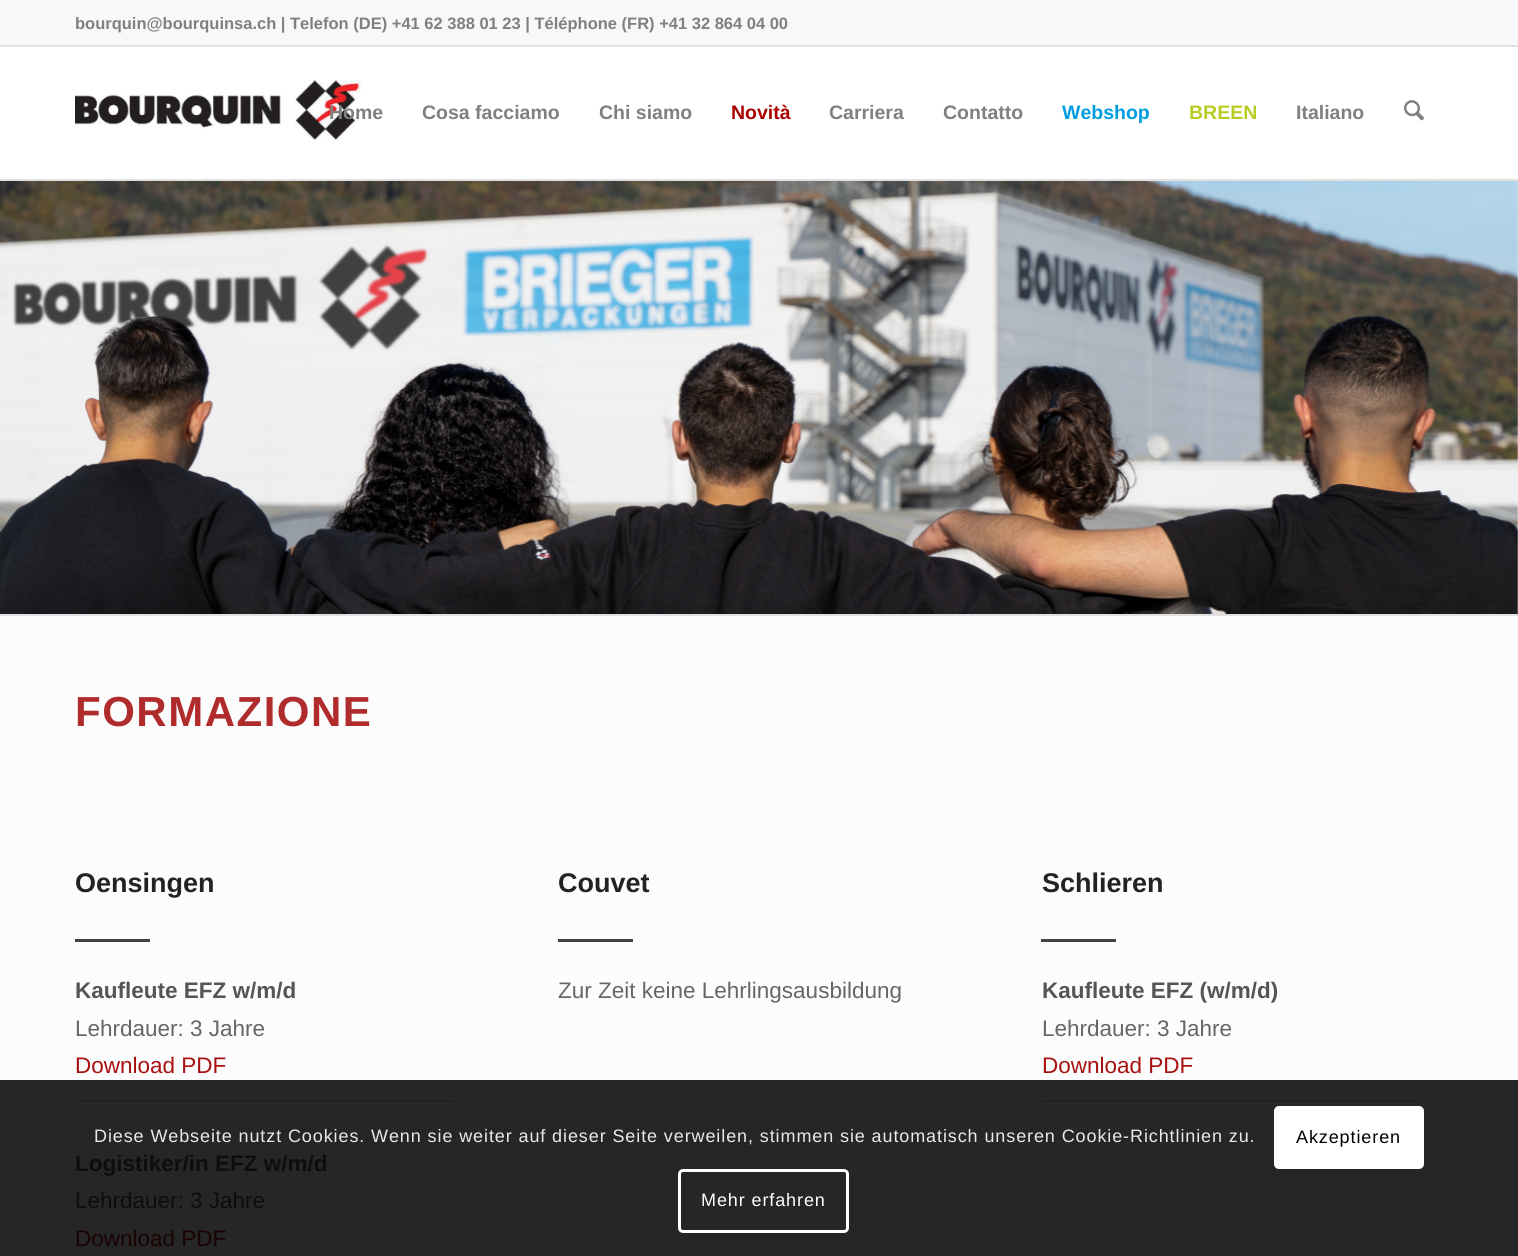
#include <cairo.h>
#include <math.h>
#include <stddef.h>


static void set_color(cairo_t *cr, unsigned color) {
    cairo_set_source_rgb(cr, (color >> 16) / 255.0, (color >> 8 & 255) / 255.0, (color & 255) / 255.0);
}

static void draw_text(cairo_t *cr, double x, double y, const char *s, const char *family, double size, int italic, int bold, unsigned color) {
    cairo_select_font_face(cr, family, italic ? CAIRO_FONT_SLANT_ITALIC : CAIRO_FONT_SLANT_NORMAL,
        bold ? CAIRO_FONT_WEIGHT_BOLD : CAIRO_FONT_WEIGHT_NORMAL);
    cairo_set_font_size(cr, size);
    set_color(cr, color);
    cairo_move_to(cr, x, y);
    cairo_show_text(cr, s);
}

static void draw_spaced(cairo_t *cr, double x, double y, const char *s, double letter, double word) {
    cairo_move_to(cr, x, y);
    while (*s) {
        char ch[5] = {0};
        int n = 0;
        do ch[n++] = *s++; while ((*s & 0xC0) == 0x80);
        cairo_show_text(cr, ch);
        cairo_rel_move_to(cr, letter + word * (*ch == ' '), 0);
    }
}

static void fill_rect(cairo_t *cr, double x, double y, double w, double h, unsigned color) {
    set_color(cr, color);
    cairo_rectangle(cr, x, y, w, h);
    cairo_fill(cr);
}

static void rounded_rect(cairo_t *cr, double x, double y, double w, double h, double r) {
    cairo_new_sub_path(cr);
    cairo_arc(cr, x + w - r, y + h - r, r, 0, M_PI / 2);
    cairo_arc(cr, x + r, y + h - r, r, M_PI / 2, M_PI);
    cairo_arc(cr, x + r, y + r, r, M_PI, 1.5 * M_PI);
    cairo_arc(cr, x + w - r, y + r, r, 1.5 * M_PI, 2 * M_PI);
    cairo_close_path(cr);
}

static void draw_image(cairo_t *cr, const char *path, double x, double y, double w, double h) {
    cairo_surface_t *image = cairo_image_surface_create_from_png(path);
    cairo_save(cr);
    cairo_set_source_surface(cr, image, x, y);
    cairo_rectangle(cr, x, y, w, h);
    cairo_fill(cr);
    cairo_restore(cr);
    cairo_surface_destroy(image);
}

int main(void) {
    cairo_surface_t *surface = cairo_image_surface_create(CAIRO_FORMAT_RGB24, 1518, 1256);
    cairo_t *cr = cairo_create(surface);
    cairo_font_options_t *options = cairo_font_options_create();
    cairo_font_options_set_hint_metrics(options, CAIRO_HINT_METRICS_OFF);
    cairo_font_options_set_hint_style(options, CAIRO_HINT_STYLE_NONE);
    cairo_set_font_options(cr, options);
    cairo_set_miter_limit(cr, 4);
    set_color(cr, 0xFFFFFF);
    cairo_paint(cr);
    fill_rect(cr, 0, 0, 1518, 45, 0xF8F8F8);
    fill_rect(cr, 0, 45, 1518, 2, 0xE1E1E1);
    draw_text(cr, 75, 29, "bourquin@bourquinsa.ch | Telefon (DE) +41 62 388 01 23 | Téléphone (FR) +41 32 864 04 00", "Liberation Sans", 16.5, 0, 1, 0x808080);
    fill_rect(cr, 0, 179, 1518, 2, 0xE1E1E1);
    draw_image(cr, "assets/img1.png", 75, 47, 288, 94);
    draw_text(cr, 329, 119, "Home", "Liberation Sans", 19.5, 0, 1, 0x808080);
    draw_text(cr, 422, 119, "Cosa facciamo", "Liberation Sans", 19.5, 0, 1, 0x808080);
    draw_text(cr, 599, 119, "Chi siamo", "Liberation Sans", 19.5, 0, 1, 0x808080);
    draw_text(cr, 731, 119, "Novità", "Liberation Sans", 19.5, 0, 1, 0xAB0000);
    draw_text(cr, 829, 119, "Carriera", "Liberation Sans", 19.5, 0, 1, 0x808080);
    draw_text(cr, 943, 119, "Contatto", "Liberation Sans", 19.5, 0, 1, 0x808080);
    draw_text(cr, 1062, 119, "Webshop", "Liberation Sans", 19.5, 0, 1, 0x009EE0);
    draw_text(cr, 1189, 119, "BREEN", "Liberation Sans", 19.5, 0, 1, 0xB8CD23);
    draw_text(cr, 1296, 119, "Italiano", "Liberation Sans", 19.5, 0, 1, 0x808080);
    draw_image(cr, "assets/img2.png", 1404, 100, 20, 21);
    draw_image(cr, "assets/img3.png", 0, 181, 1518, 433);
    fill_rect(cr, 0, 616, 1518, 464, 0xFCFCFC);
    fill_rect(cr, 0, 1080, 1518, 176, 0x262626);
    fill_rect(cr, 0, 614, 1518, 2, 0xE1E1E1);
    cairo_set_font_size(cr, 42);
    set_color(cr, 0xB02B2C);
    draw_spaced(cr, 75, 726, "FORMAZIONE", 1.5, 0);
    draw_text(cr, 75, 892, "Oensingen", "Liberation Sans", 27, 0, 1, 0x222222);
    fill_rect(cr, 75, 939, 75, 3, 0x424242);
    draw_text(cr, 75, 998, "Kaufleute EFZ w/m/d", "Liberation Sans", 22.5, 0, 1, 0x555555);
    draw_text(cr, 75, 1036, "Lehrdauer: 3 Jahre", "Liberation Sans", 22.5, 0, 0, 0x666666);
    draw_text(cr, 75, 1073, "Download PDF", "Liberation Sans", 22.5, 0, 0, 0xA81010);
    fill_rect(cr, 75, 1100, 380, 2, 0x212121);
    draw_text(cr, 75, 1171, "Logistiker/in EFZ w/m/d", "Liberation Sans", 22.5, 0, 1, 0x0D0D0D);
    draw_text(cr, 75, 1208, "Lehrdauer: 3 Jahre", "Liberation Sans", 22.5, 0, 0, 0x0D0D0D);
    draw_text(cr, 75, 1246, "Download PDF", "Liberation Sans", 22.5, 0, 0, 0x190202);
    draw_text(cr, 558, 892, "Couvet", "Liberation Sans", 27, 0, 1, 0x222222);
    fill_rect(cr, 558, 939, 75, 3, 0x424242);
    draw_text(cr, 558, 998, "Zur Zeit keine Lehrlingsausbildung", "Liberation Sans", 22.5, 0, 0, 0x666666);
    draw_text(cr, 1042, 892, "Schlieren", "Liberation Sans", 27, 0, 1, 0x222222);
    fill_rect(cr, 1041, 939, 75, 3, 0x424242);
    draw_text(cr, 1042, 998, "Kaufleute EFZ (w/m/d)", "Liberation Sans", 22.5, 0, 1, 0x555555);
    draw_text(cr, 1042, 1036, "Lehrdauer: 3 Jahre", "Liberation Sans", 22.5, 0, 0, 0x666666);
    draw_text(cr, 1042, 1073, "Download PDF", "Liberation Sans", 22.5, 0, 0, 0xA81010);
    fill_rect(cr, 1041, 1100, 380, 2, 0x212121);
    cairo_set_font_size(cr, 18);
    set_color(cr, 0xE9E9E9);
    draw_spaced(cr, 94, 1142, "Diese Webseite nutzt Cookies. Wenn sie weiter auf dieser Seite verweilen, stimmen sie automatisch unseren Cookie-Richtlinien zu.", 0.9, 0);
    set_color(cr, 0xFFFFFF);
    rounded_rect(cr, 1274, 1106, 150, 63, 5);
    cairo_fill(cr);
    set_color(cr, 0x000000);
    draw_spaced(cr, 1296, 1143, "Akzeptieren", 0.9, 0);
    rounded_rect(cr, 679.5, 1170.5, 168, 61, 3.5);
    set_color(cr, 0xFFFFFF);
    cairo_set_line_width(cr, 3);
    cairo_stroke(cr);
    draw_spaced(cr, 701, 1206, "Mehr erfahren", 0.9, 0);
    cairo_surface_write_to_png(surface, "output.png");
    cairo_font_options_destroy(options);
    cairo_destroy(cr);
    cairo_surface_destroy(surface);
    return 0;
}
